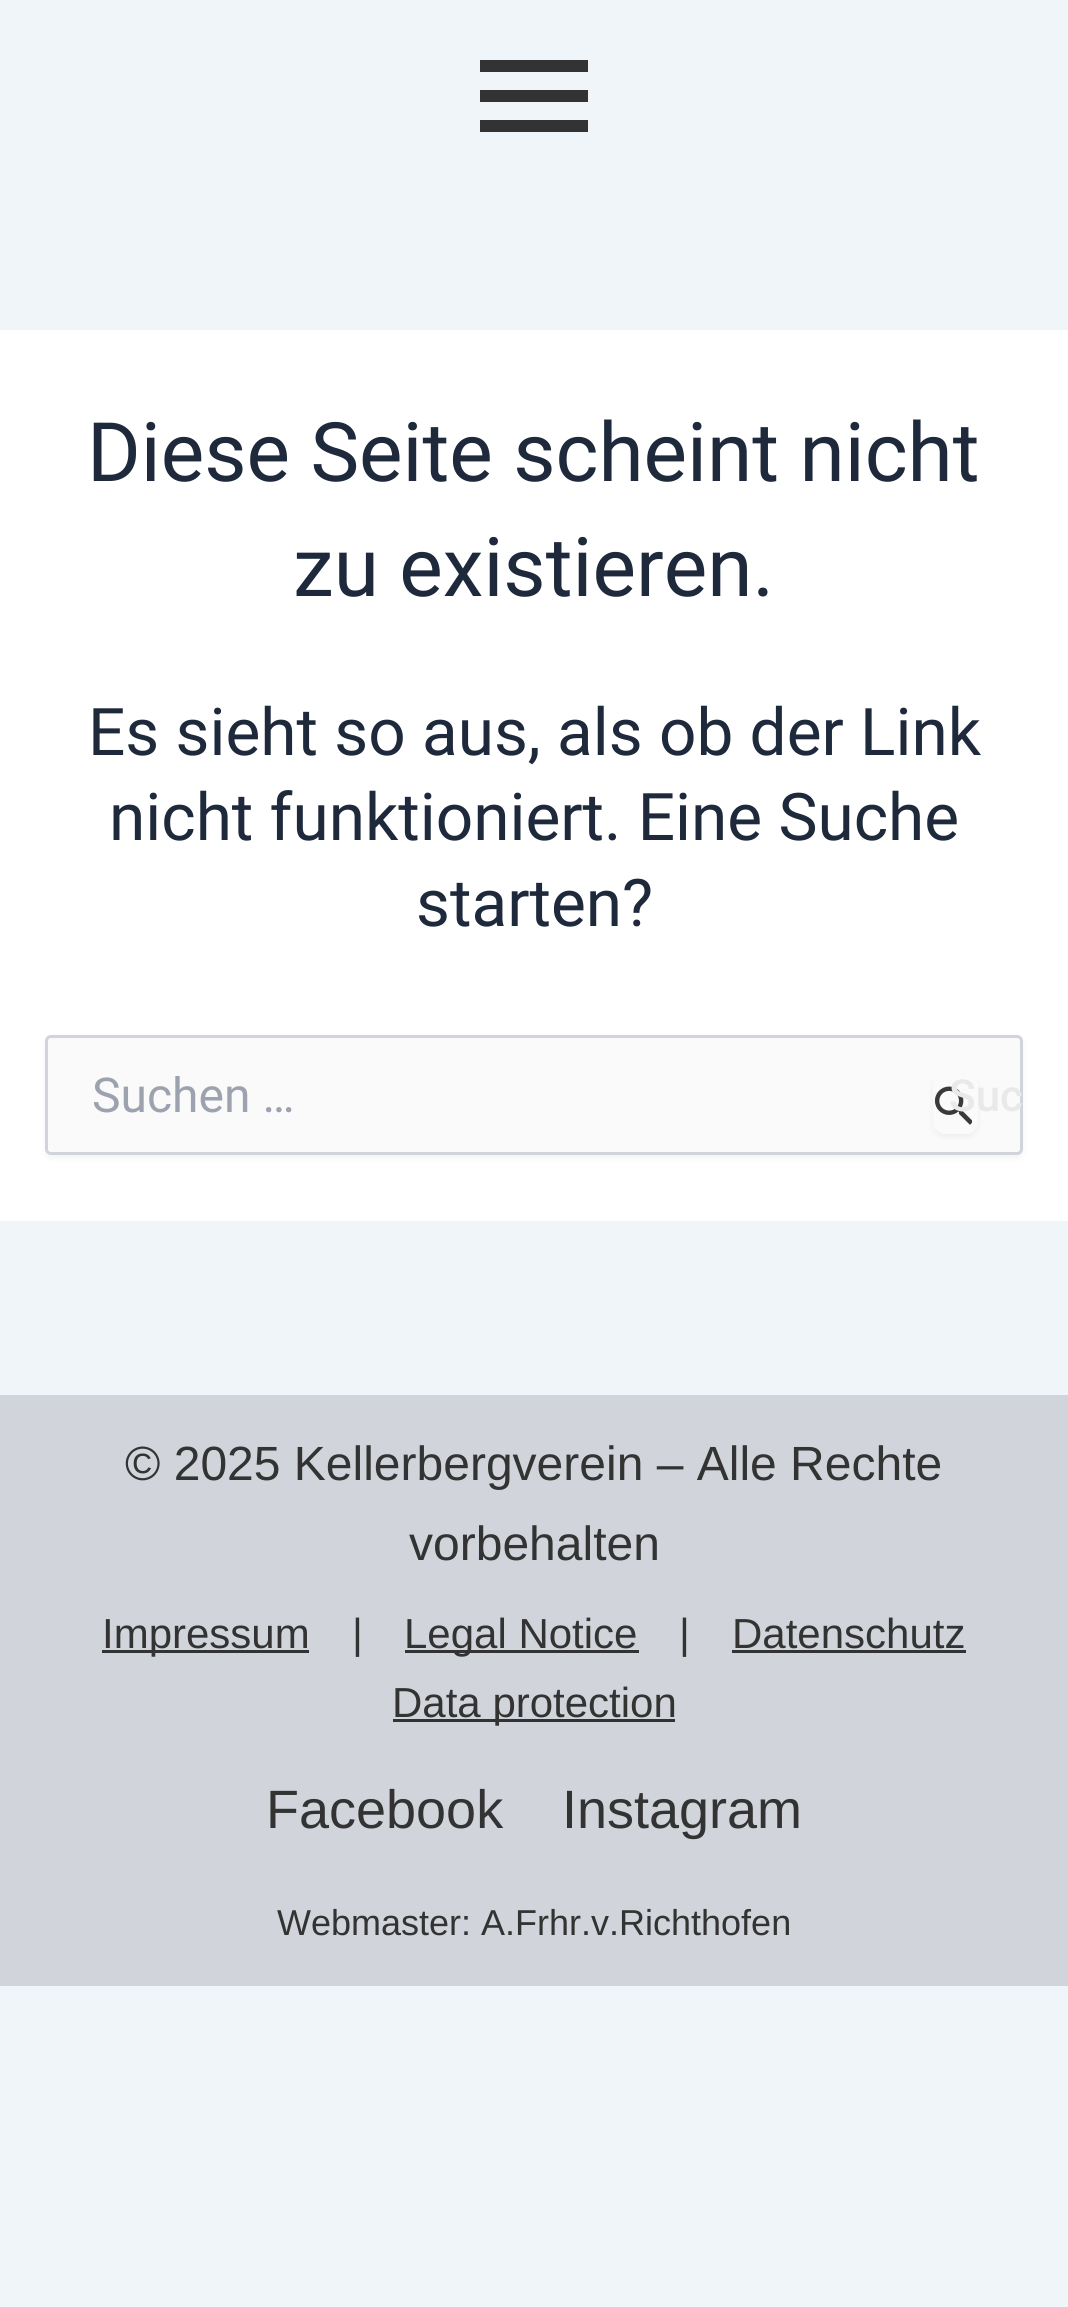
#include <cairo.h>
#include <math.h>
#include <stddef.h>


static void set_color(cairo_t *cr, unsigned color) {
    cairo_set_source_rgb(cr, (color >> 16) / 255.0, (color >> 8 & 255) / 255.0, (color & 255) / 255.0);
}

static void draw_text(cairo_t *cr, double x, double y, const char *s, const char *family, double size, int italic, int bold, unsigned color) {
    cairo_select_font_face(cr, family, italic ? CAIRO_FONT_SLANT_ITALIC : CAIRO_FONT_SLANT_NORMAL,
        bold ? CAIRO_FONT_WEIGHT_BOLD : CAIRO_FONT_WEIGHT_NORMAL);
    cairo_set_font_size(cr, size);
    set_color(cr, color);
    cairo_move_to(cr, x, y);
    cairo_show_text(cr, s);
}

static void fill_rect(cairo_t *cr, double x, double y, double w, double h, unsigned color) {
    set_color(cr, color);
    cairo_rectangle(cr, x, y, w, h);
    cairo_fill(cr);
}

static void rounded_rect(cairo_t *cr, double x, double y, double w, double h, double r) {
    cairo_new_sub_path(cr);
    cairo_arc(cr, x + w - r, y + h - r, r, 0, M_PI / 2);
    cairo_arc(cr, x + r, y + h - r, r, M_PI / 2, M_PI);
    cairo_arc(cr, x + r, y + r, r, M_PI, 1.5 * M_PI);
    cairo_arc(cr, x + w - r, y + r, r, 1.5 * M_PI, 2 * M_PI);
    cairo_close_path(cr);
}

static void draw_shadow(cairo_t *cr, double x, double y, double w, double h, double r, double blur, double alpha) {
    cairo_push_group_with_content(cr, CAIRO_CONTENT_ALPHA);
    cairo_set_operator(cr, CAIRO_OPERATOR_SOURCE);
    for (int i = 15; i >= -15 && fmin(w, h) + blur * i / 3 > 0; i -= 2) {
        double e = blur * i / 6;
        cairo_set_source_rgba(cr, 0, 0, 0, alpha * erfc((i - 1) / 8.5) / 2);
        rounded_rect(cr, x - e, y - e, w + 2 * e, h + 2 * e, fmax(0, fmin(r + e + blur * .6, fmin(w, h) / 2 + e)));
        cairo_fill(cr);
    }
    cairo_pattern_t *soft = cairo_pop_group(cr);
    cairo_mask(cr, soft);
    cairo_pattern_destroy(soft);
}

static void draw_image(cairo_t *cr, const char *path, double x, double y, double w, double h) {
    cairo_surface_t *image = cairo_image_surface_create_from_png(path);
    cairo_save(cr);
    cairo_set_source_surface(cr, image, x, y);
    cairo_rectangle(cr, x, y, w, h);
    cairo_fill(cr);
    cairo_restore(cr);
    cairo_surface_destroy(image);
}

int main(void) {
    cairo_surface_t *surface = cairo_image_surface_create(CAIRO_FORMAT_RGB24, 1068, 2307);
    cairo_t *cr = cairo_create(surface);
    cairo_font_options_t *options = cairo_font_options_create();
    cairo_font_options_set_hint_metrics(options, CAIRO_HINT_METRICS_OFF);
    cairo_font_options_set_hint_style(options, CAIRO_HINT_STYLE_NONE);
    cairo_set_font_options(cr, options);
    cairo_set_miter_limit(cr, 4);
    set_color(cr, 0xF0F5FA);
    cairo_paint(cr);
    fill_rect(cr, 480, 60, 108, 12, 0x333333);
    fill_rect(cr, 480, 90, 108, 12, 0x333333);
    fill_rect(cr, 480, 120, 108, 12, 0x333333);
    fill_rect(cr, 0, 330, 1068, 891, 0xFFFFFF);
    draw_text(cr, 87, 481, "Diese Seite scheint nicht", "Roboto", 82, 0, 0, 0x1E293B);
    draw_text(cr, 293, 596, "zu existieren.", "Roboto", 82, 0, 0, 0x1E293B);
    draw_text(cr, 88, 755, "Es sieht so aus, als ob der Link", "Roboto", 65.7, 0, 0, 0x1E293B);
    draw_text(cr, 109, 840, "nicht funktioniert. Eine Suche", "Roboto", 65.7, 0, 0, 0x1E293B);
    draw_text(cr, 416, 926, "starten?", "Roboto", 65.7, 0, 0, 0x1E293B);
    set_color(cr, 0x000000);
    draw_shadow(cr, 45, 1038, 978, 120, 6, 3, 0.05);
    set_color(cr, 0xFAFAFA);
    rounded_rect(cr, 46.5, 1036.5, 975, 117, 4.5);
    cairo_fill_preserve(cr);
    set_color(cr, 0xD1D5DB);
    cairo_set_line_width(cr, 3);
    cairo_stroke(cr);
    draw_text(cr, 92, 1112, "Suchen …", "Roboto", 48, 0, 0, 0x9CA3AF);
    cairo_save(cr);
    cairo_set_fill_rule(cr, CAIRO_FILL_RULE_EVEN_ODD);
    cairo_new_path(cr);
    cairo_move_to(cr, 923, 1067);
    cairo_line_to(cr, 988, 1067);
    cairo_line_to(cr, 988, 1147);
    cairo_line_to(cr, 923, 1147);
    cairo_close_path(cr);
    cairo_move_to(cr, 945, 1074);
    cairo_line_to(cr, 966, 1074);
    cairo_curve_to(cr, 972.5, 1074, 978, 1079.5, 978, 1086);
    cairo_line_to(cr, 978, 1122);
    cairo_curve_to(cr, 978, 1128.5, 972.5, 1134, 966, 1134);
    cairo_line_to(cr, 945, 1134);
    cairo_curve_to(cr, 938.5, 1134, 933, 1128.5, 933, 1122);
    cairo_line_to(cr, 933, 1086);
    cairo_curve_to(cr, 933, 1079.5, 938.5, 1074, 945, 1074);
    cairo_close_path(cr);
    cairo_clip(cr);
    set_color(cr, 0x000000);
    draw_shadow(cr, 933, 1077, 45, 60, 12, 3, 0.05);
    cairo_restore(cr);
    draw_image(cr, "assets/img1.png", 934, 1086, 38, 39);
    draw_text(cr, 949, 1111, "Suc", "Roboto Medium", 44, 0, 0, 0xE9E9EA);
    fill_rect(cr, 0, 1395, 1068, 591, 0xD1D5DB);
    draw_text(cr, 125, 1480, "© 2025 Kellerbergverein – Alle Rechte", "Liberation Sans", 48, 0, 0, 0x333333);
    draw_text(cr, 409, 1560, "vorbehalten", "Liberation Sans", 48, 0, 0, 0x333333);
    fill_rect(cr, 102, 1650, 207, 3, 0x333333);
    draw_text(cr, 102, 1648, "Impressum", "Liberation Sans", 42, 0, 0, 0x333333);
    draw_text(cr, 352, 1648, "|", "Liberation Sans", 42, 0, 0, 0x333333);
    fill_rect(cr, 405, 1650, 234, 3, 0x333333);
    draw_text(cr, 404, 1648, "Legal Notice", "Liberation Sans", 42, 0, 0, 0x333333);
    draw_text(cr, 679, 1648, "|", "Liberation Sans", 42, 0, 0, 0x333333);
    draw_text(cr, 732, 1648, "Datenschutz", "Liberation Sans", 42, 0, 0, 0x333333);
    fill_rect(cr, 732, 1650, 234, 3, 0x333333);
    fill_rect(cr, 393, 1719, 282, 3, 0x333333);
    draw_text(cr, 392, 1717, "Data protection", "Liberation Sans", 42, 0, 0, 0x333333);
    draw_text(cr, 266, 1828, "Facebook", "Liberation Sans", 54, 0, 0, 0x333333);
    draw_text(cr, 562, 1828, "Instagram", "Liberation Sans", 54, 0, 0, 0x333333);
    draw_text(cr, 277, 1935, "Webmaster: A.Frhr.v.Richthofen", "Liberation Sans", 36, 0, 0, 0x333333);
    cairo_surface_write_to_png(surface, "output.png");
    cairo_font_options_destroy(options);
    cairo_destroy(cr);
    cairo_surface_destroy(surface);
    return 0;
}
